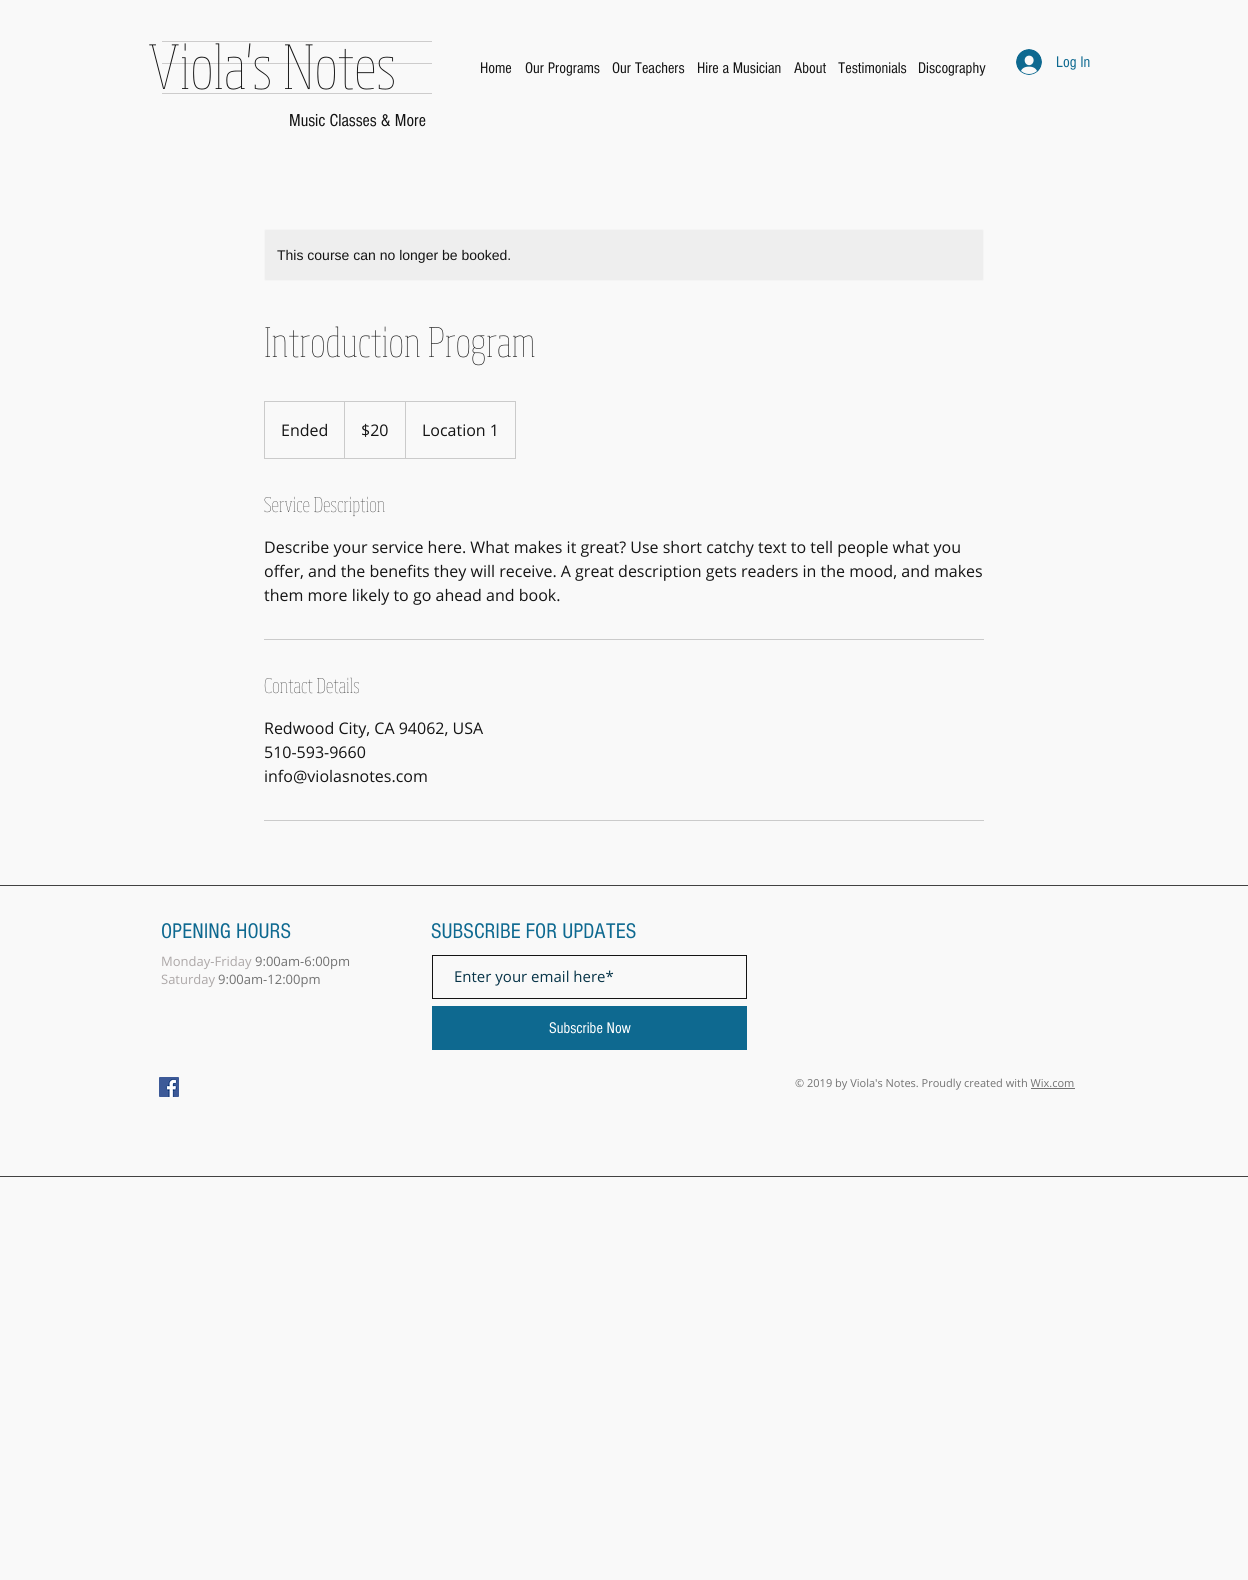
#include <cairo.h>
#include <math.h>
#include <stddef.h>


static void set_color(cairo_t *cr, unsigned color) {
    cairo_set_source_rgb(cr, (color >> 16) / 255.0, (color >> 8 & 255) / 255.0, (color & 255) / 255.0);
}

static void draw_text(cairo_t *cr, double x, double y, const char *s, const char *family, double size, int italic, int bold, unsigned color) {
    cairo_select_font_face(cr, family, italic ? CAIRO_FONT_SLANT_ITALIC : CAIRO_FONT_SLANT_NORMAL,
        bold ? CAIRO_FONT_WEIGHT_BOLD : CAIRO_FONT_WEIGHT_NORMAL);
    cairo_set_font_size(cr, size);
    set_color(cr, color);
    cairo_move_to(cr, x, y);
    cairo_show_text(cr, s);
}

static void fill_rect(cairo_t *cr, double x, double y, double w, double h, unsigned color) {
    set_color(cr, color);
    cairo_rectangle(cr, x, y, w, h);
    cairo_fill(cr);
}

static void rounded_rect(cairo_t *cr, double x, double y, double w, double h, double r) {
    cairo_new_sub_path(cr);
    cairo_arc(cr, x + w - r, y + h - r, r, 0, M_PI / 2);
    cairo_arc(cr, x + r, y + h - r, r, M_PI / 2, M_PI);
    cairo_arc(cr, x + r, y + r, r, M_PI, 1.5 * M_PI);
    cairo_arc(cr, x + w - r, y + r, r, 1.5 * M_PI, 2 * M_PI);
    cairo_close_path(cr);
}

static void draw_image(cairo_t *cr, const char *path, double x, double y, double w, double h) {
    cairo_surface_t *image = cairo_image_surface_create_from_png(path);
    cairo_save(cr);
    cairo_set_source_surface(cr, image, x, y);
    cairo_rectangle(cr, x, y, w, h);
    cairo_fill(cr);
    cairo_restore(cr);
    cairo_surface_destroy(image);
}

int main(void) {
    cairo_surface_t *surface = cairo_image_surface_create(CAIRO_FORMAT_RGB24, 1248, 1580);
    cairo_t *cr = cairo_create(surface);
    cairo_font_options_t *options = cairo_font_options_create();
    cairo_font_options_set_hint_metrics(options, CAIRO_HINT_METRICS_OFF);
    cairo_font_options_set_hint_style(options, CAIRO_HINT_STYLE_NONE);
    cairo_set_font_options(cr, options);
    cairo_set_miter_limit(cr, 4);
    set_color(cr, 0xF9F9F9);
    cairo_paint(cr);
    fill_rect(cr, 162, 41, 270, 1, 0xCDCCCC);
    fill_rect(cr, 162, 63, 270, 1, 0xCDCCCC);
    draw_image(cr, "assets/img1.png", 149, 43, 121, 47);
    draw_image(cr, "assets/img2.png", 285, 44, 109, 46);
    draw_text(cr, 480, 73, "Home", "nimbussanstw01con", 16, 0, 0, 0x141414);
    draw_text(cr, 525, 73, "Our Programs", "nimbussanstw01con", 16, 0, 0, 0x141414);
    draw_text(cr, 612, 73, "Our Teachers", "nimbussanstw01con", 16, 0, 0, 0x141414);
    draw_text(cr, 697, 73, "Hire a Musician", "nimbussanstw01con", 16, 0, 0, 0x141414);
    draw_text(cr, 794, 73, "About", "nimbussanstw01con", 16, 0, 0, 0x141414);
    draw_text(cr, 838, 73, "Testimonials", "nimbussanstw01con", 16, 0, 0, 0x141414);
    draw_text(cr, 918, 73, "Discography", "nimbussanstw01con", 16, 0, 0, 0x141414);
    draw_image(cr, "assets/img3.png", 1016, 49, 26, 26);
    draw_text(cr, 1056, 67, "Log In", "nimbussanstw01con", 16, 0, 0, 0x0E6990);
    fill_rect(cr, 162, 93, 270, 1, 0xCDCCCC);
    draw_text(cr, 289, 126, "Music Classes & More", "nimbussanstw01con", 18, 0, 0, 0x141414);
    set_color(cr, 0xEEEEEE);
    rounded_rect(cr, 264.5, 229.5, 719, 51, 1.5);
    cairo_fill_preserve(cr);
    set_color(cr, 0xF5F5F5);
    cairo_set_line_width(cr, 1);
    cairo_stroke(cr);
    draw_text(cr, 277, 260, "This course can no longer be booked.", "Liberation Sans", 14, 0, 0, 0x141414);
    draw_image(cr, "assets/img4.png", 265, 326, 270, 40);
    cairo_rectangle(cr, 264.5, 401.5, 251, 57);
    set_color(cr, 0xCBCBCB);
    cairo_stroke(cr);
    draw_text(cr, 281, 436, "Ended", "Open Sans", 16, 0, 0, 0x141414);
    set_color(cr, 0xCBCBCB);
    cairo_new_path(cr);
    cairo_move_to(cr, 344, 458);
    cairo_line_to(cr, 344, 401);
    cairo_line_to(cr, 345, 402);
    cairo_line_to(cr, 345, 458);
    cairo_close_path(cr);
    cairo_fill(cr);
    draw_text(cr, 361, 436, "$20", "Open Sans", 16, 0, 0, 0x141414);
    set_color(cr, 0xCBCBCB);
    cairo_new_path(cr);
    cairo_move_to(cr, 405, 458);
    cairo_line_to(cr, 405, 401);
    cairo_line_to(cr, 406, 402);
    cairo_line_to(cr, 406, 458);
    cairo_close_path(cr);
    cairo_fill(cr);
    draw_text(cr, 422, 436, "Location 1", "Open Sans", 16, 0, 0, 0x141414);
    draw_image(cr, "assets/img5.png", 264, 496, 121, 21);
    draw_text(cr, 264, 553, "Describe your service here. What makes it great? Use short catchy text to tell people what you", "Open Sans", 16, 0, 0, 0x141414);
    draw_text(cr, 264, 577, "offer, and the benefits they will receive. A great description gets readers in the mood, and makes", "Open Sans", 16, 0, 0, 0x141414);
    draw_text(cr, 264, 601, "them more likely to go ahead and book.", "Open Sans", 16, 0, 0, 0x141414);
    fill_rect(cr, 264, 639, 720, 1, 0xCBCBCB);
    draw_image(cr, "assets/img6.png", 264, 677, 95, 17);
    draw_text(cr, 264, 734, "Redwood City, CA 94062, USA", "Open Sans", 16, 0, 0, 0x141414);
    draw_text(cr, 264, 758, "510-593-9660", "Open Sans", 16, 0, 0, 0x141414);
    draw_text(cr, 264, 782, "info@violasnotes.com", "Open Sans", 16, 0, 0, 0x141414);
    fill_rect(cr, 264, 820, 720, 1, 0xCBCBCB);
    fill_rect(cr, 0, 885, 1248, 1, 0x424242);
    fill_rect(cr, 0, 1176, 1248, 1, 0x424242);
    draw_text(cr, 161, 938, "OPENING HOURS", "nimbussanstw01con", 22, 0, 0, 0x0E6990);
    draw_text(cr, 161, 966, "Monday-Friday", "Open Sans", 13, 0, 0, 0xADA8A8);
    draw_text(cr, 255, 966, "9:00am-6:00pm", "Open Sans", 13, 0, 0, 0x727272);
    draw_text(cr, 161, 984, "Saturday", "Open Sans", 13, 0, 0, 0xADA8A8);
    draw_text(cr, 218, 984, "9:00am-12:00pm", "Open Sans", 13, 0, 0, 0x727272);
    draw_text(cr, 431, 938, "SUBSCRIBE FOR UPDATES", "nimbussanstw01con", 22, 0, 0, 0x0E6990);
    cairo_rectangle(cr, 432.5, 955.5, 314, 43);
    set_color(cr, 0x141414);
    cairo_stroke(cr);
    draw_text(cr, 454, 982, "Enter your email here*", "Open Sans", 15, 0, 0, 0x073448);
    fill_rect(cr, 432, 1006, 315, 44, 0x0E6990);
    draw_text(cr, 549, 1033, "Subscribe Now", "nimbussanstw01con", 16, 0, 0, 0xFFFFFF);
    draw_image(cr, "assets/img7.png", 159, 1077, 20, 20);
    draw_text(cr, 795, 1087, "© 2019 by Viola's Notes. Proudly created with Wix.com", "Open Sans", 11, 0, 0, 0x727272);
    fill_rect(cr, 1031, 1088, 44, 1, 0x727272);
    cairo_surface_write_to_png(surface, "output.png");
    cairo_font_options_destroy(options);
    cairo_destroy(cr);
    cairo_surface_destroy(surface);
    return 0;
}
